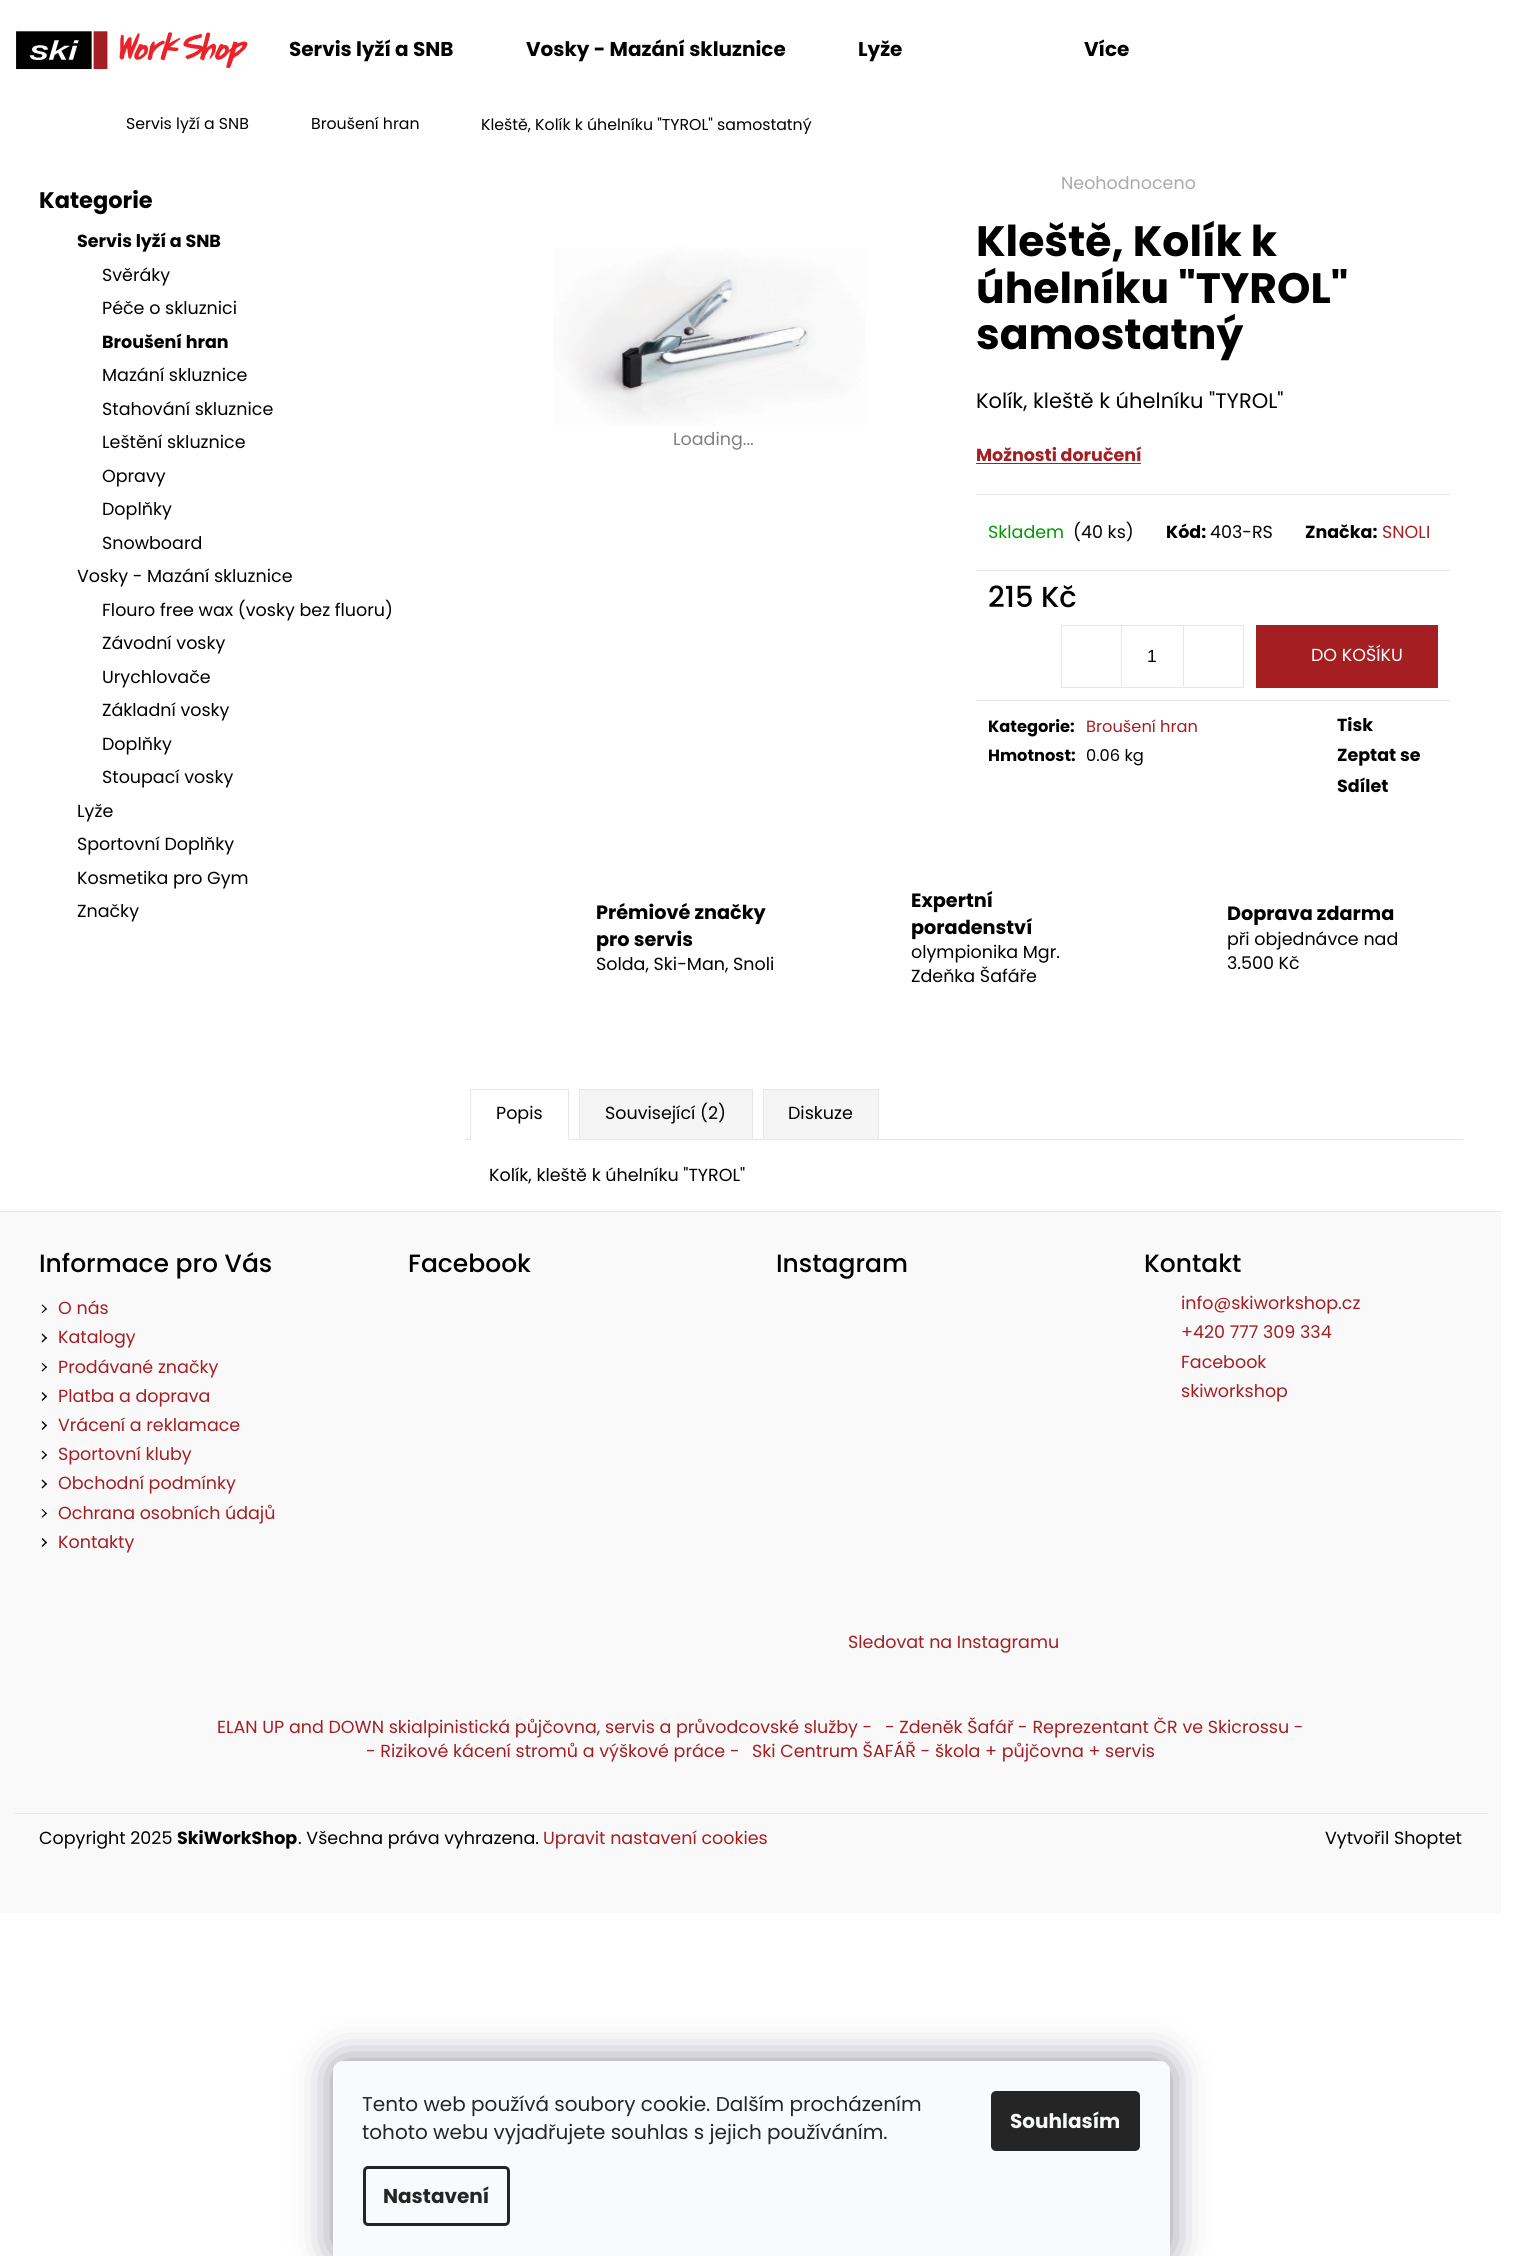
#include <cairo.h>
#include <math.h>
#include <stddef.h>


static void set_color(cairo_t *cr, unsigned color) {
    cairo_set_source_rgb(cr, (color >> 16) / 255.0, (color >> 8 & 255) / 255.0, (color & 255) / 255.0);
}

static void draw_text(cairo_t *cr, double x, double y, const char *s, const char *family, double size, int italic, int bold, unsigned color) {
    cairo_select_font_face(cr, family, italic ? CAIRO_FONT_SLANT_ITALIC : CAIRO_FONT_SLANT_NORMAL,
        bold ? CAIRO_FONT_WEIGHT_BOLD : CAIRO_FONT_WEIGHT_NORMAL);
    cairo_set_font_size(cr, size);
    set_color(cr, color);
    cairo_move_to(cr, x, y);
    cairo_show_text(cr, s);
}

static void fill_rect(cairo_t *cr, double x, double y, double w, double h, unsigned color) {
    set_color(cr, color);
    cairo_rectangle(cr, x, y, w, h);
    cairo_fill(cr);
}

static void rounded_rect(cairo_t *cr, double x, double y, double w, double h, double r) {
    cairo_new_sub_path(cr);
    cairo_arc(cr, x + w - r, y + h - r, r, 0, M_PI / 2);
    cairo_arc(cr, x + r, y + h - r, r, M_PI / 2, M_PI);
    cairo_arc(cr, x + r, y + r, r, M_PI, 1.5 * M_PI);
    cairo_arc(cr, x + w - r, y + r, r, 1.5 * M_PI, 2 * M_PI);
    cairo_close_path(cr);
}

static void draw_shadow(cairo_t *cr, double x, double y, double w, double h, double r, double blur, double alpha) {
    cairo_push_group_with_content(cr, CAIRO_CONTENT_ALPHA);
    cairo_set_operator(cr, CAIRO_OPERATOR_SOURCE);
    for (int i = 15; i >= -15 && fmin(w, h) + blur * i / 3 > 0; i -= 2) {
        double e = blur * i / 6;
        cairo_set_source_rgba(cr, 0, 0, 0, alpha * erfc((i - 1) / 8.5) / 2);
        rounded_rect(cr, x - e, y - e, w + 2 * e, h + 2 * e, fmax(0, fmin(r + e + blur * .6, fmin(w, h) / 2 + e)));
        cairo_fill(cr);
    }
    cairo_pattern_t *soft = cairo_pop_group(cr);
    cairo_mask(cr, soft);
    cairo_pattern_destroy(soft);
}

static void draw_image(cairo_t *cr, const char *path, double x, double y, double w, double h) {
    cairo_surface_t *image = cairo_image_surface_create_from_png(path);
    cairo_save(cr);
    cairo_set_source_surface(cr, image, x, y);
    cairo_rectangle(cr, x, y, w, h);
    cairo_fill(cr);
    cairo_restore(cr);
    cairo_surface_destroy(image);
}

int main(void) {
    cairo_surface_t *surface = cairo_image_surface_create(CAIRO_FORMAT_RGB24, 1520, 2256);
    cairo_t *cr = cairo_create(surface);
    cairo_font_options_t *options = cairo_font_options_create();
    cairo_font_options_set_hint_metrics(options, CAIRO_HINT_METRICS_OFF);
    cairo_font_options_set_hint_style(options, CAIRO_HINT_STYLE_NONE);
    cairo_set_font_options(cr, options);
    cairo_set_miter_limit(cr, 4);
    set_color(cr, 0xFFFFFF);
    cairo_paint(cr);
    draw_image(cr, "assets/img1.png", 16, 31, 232, 39);
    draw_text(cr, 289, 56, "Servis lyží a SNB", "Poppins", 20, 0, 1, 0x000000);
    draw_text(cr, 526, 56, "Vosky - Mazání skluznice", "Poppins", 20, 0, 1, 0x000000);
    draw_text(cr, 858, 56, "Lyže", "Poppins", 20, 0, 1, 0x000000);
    draw_text(cr, 1084, 56, "Více", "Poppins", 20, 0, 1, 0x000000);
    draw_text(cr, 126, 129, "Servis lyží a SNB", "Poppins", 15.75, 0, 0, 0x000000);
    draw_text(cr, 311, 129, "Broušení hran", "Poppins", 15.75, 0, 0, 0x000000);
    draw_text(cr, 481, 130, "Kleště, Kolík k úhelníku \"TYROL\" samostatný", "Poppins", 15.75, 0, 0, 0x000000);
    draw_text(cr, 39, 208, "Kategorie", "Poppins", 22.5, 0, 1, 0x000000);
    draw_text(cr, 77, 247, "Servis lyží a SNB", "Poppins", 17.5, 0, 1, 0x000000);
    draw_text(cr, 102, 281, "Svěráky", "Poppins", 17.5, 0, 0, 0x000000);
    draw_text(cr, 102, 314, "Péče o skluznici", "Poppins", 17.5, 0, 0, 0x000000);
    draw_text(cr, 102, 348, "Broušení hran", "Poppins", 17.5, 0, 1, 0x000000);
    draw_text(cr, 102, 381, "Mazání skluznice", "Poppins", 17.5, 0, 0, 0x000000);
    draw_text(cr, 102, 415, "Stahování skluznice", "Poppins", 17.5, 0, 0, 0x000000);
    draw_text(cr, 102, 448, "Leštění skluznice", "Poppins", 17.5, 0, 0, 0x000000);
    draw_text(cr, 102, 482, "Opravy", "Poppins", 17.5, 0, 0, 0x000000);
    draw_text(cr, 102, 515, "Doplňky", "Poppins", 17.5, 0, 0, 0x000000);
    draw_text(cr, 102, 549, "Snowboard", "Poppins", 17.5, 0, 0, 0x000000);
    draw_text(cr, 77, 582, "Vosky - Mazání skluznice", "Poppins", 17.5, 0, 0, 0x000000);
    draw_text(cr, 102, 616, "Flouro free wax (vosky bez fluoru)", "Poppins", 17.5, 0, 0, 0x000000);
    draw_text(cr, 102, 649, "Závodní vosky", "Poppins", 17.5, 0, 0, 0x000000);
    draw_text(cr, 102, 683, "Urychlovače", "Poppins", 17.5, 0, 0, 0x000000);
    draw_text(cr, 102, 716, "Základní vosky", "Poppins", 17.5, 0, 0, 0x000000);
    draw_text(cr, 102, 750, "Doplňky", "Poppins", 17.5, 0, 0, 0x000000);
    draw_text(cr, 102, 783, "Stoupací vosky", "Poppins", 17.5, 0, 0, 0x000000);
    draw_text(cr, 77, 817, "Lyže", "Poppins", 17.5, 0, 0, 0x000000);
    draw_text(cr, 77, 850, "Sportovní Doplňky", "Poppins", 17.5, 0, 0, 0x000000);
    draw_text(cr, 77, 884, "Kosmetika pro Gym", "Poppins", 17.5, 0, 0, 0x000000);
    draw_text(cr, 77, 917, "Značky", "Poppins", 17.5, 0, 0, 0x000000);
    draw_image(cr, "assets/img2.png", 553, 247, 313, 179);
    draw_text(cr, 673, 445, "Loading...", "Poppins", 17.5, 0, 0, 0x808080);
    draw_text(cr, 1061, 189, "Neohodnoceno", "Poppins", 17.5, 0, 0, 0xAAAAAA);
    draw_text(cr, 976, 256, "Kleště, Kolík k", "Poppins", 42.5, 0, 1, 0x000000);
    draw_text(cr, 976, 303, "úhelníku \"TYROL\"", "Poppins", 42.5, 0, 1, 0x000000);
    draw_text(cr, 976, 349, "samostatný", "Poppins", 42.5, 0, 1, 0x000000);
    draw_text(cr, 976, 408, "Kolík, kleště k úhelníku \"TYROL\"", "Poppins", 21, 0, 0, 0x000000);
    draw_text(cr, 976, 461, "Možnosti doručení", "Poppins", 17.5, 0, 1, 0xA51E22);
    fill_rect(cr, 976, 463, 165, 1, 0xA51E22);
    fill_rect(cr, 976, 494, 474, 1, 0xE7E7E7);
    fill_rect(cr, 976, 570, 474, 1, 0xE7E7E7);
    draw_text(cr, 988, 538, "Skladem", "Poppins", 17.5, 0, 0, 0x009901);
    draw_text(cr, 1073, 538, "(40 ks)", "Poppins", 17.5, 0, 0, 0x000000);
    draw_text(cr, 1166, 538, "Kód:", "Poppins", 17.5, 0, 1, 0x000000);
    draw_text(cr, 1210, 538, "403-RS", "Poppins", 17.5, 0, 0, 0x000000);
    draw_text(cr, 1305, 538, "Značka:", "Poppins", 17.5, 0, 1, 0x000000);
    draw_text(cr, 1382, 538, "SNOLI", "Poppins", 17.5, 0, 0, 0xA51E22);
    fill_rect(cr, 976, 700, 474, 1, 0xE7E7E7);
    draw_text(cr, 988, 607, "215 Kč", "Poppins Medium", 29, 0, 0, 0x000000);
    cairo_rectangle(cr, 1061.5, 625.5, 182, 62);
    set_color(cr, 0xE6E6E6);
    cairo_set_line_width(cr, 1);
    cairo_stroke(cr);
    fill_rect(cr, 1121, 626, 1, 60, 0xE6E6E6);
    draw_text(cr, 1147, 662, "1", "Liberation Sans", 17.5, 0, 0, 0x000000);
    fill_rect(cr, 1183, 626, 1, 60, 0xE6E6E6);
    fill_rect(cr, 1256, 625, 182, 63, 0xA51E22);
    draw_text(cr, 1311, 661, "DO KOŠÍKU", "Poppins", 17.5, 0, 0, 0xFFFFFF);
    draw_text(cr, 988, 732, "Kategorie:", "Poppins", 16.25, 0, 1, 0x000000);
    draw_text(cr, 1086, 732, "Broušení hran", "Poppins", 16.25, 0, 0, 0xA51E22);
    draw_text(cr, 988, 761, "Hmotnost:", "Poppins", 16.25, 0, 1, 0x000000);
    draw_text(cr, 1086, 761, "0.06 kg", "Poppins", 16.25, 0, 0, 0x000000);
    draw_text(cr, 1337, 731, "Tisk", "Poppins", 17.5, 0, 1, 0x000000);
    draw_text(cr, 1337, 761, "Zeptat se", "Poppins", 17.5, 0, 1, 0x000000);
    draw_text(cr, 1337, 792, "Sdílet", "Poppins", 17.5, 0, 1, 0x000000);
    draw_text(cr, 596, 919, "Prémiové značky", "Poppins", 19.25, 0, 1, 0x000000);
    draw_text(cr, 596, 946, "pro servis", "Poppins", 19.25, 0, 1, 0x000000);
    draw_text(cr, 596, 970, "Solda, Ski-Man, Snoli", "Poppins", 17.5, 0, 0, 0x000000);
    draw_text(cr, 911, 907, "Expertní", "Poppins", 19.25, 0, 1, 0x000000);
    draw_text(cr, 911, 934, "poradenství", "Poppins", 19.25, 0, 1, 0x000000);
    draw_text(cr, 911, 958, "olympionika Mgr.", "Poppins", 17.5, 0, 0, 0x000000);
    draw_text(cr, 911, 982, "Zdeňka Šafáře", "Poppins", 17.5, 0, 0, 0x000000);
    draw_text(cr, 1227, 920, "Doprava zdarma", "Poppins", 19.25, 0, 1, 0x000000);
    draw_text(cr, 1227, 945, "při objednávce nad", "Poppins", 17.5, 0, 0, 0x000000);
    draw_text(cr, 1227, 969, "3.500 Kč", "Poppins", 17.5, 0, 0, 0x000000);
    fill_rect(cr, 465, 1139, 998, 1, 0xE7E7E7);
    fill_rect(cr, 470, 1089, 99, 1, 0xE7E7E7);
    fill_rect(cr, 568, 1089, 1, 51, 0xE7E7E7);
    fill_rect(cr, 470, 1139, 99, 1, 0xFFFFFF);
    fill_rect(cr, 470, 1089, 1, 51, 0xE7E7E7);
    draw_text(cr, 496, 1119, "Popis", "Poppins", 17.5, 0, 0, 0x000000);
    set_color(cr, 0xF5F5F5);
    cairo_rectangle(cr, 579.5, 1089.5, 173, 50);
    cairo_fill_preserve(cr);
    set_color(cr, 0xE7E7E7);
    cairo_stroke(cr);
    draw_text(cr, 605, 1119, "Související (2)", "Poppins", 17.5, 0, 0, 0x000000);
    set_color(cr, 0xF5F5F5);
    cairo_rectangle(cr, 763.5, 1089.5, 115, 50);
    cairo_fill_preserve(cr);
    set_color(cr, 0xE7E7E7);
    cairo_stroke(cr);
    draw_text(cr, 788, 1119, "Diskuze", "Poppins", 17.5, 0, 0, 0x000000);
    draw_text(cr, 489, 1181, "Kolík, kleště k úhelníku \"TYROL\"", "Poppins", 17.5, 0, 0, 0x000000);
    fill_rect(cr, 0, 1212, 1501, 701, 0xF9F9F9);
    fill_rect(cr, 0, 1211, 1501, 1, 0xE6E6E6);
    draw_text(cr, 39, 1272, "Informace pro Vás", "Poppins Medium", 25, 0, 0, 0x000000);
    cairo_new_path(cr);
    cairo_move_to(cr, 41.5, 1305);
    cairo_line_to(cr, 42.5, 1304.5);
    cairo_line_to(cr, 47, 1309);
    cairo_line_to(cr, 46, 1309.5);
    cairo_close_path(cr);
    cairo_fill(cr);
    cairo_new_path(cr);
    cairo_move_to(cr, 41.5, 1312.5);
    cairo_line_to(cr, 46, 1308);
    cairo_line_to(cr, 47, 1309);
    cairo_line_to(cr, 42.5, 1313);
    cairo_close_path(cr);
    cairo_fill(cr);
    draw_text(cr, 58, 1314, "O nás", "Poppins", 17.5, 0, 0, 0xA51E22);
    set_color(cr, 0x000000);
    cairo_new_path(cr);
    cairo_move_to(cr, 41.5, 1334.5);
    cairo_line_to(cr, 42.5, 1333.5);
    cairo_line_to(cr, 47, 1338);
    cairo_line_to(cr, 46, 1339);
    cairo_close_path(cr);
    cairo_fill(cr);
    cairo_new_path(cr);
    cairo_move_to(cr, 41.5, 1341.5);
    cairo_line_to(cr, 46, 1337);
    cairo_line_to(cr, 47, 1338);
    cairo_line_to(cr, 42.5, 1342.5);
    cairo_close_path(cr);
    cairo_fill(cr);
    draw_text(cr, 58, 1343, "Katalogy", "Poppins", 17.5, 0, 0, 0xA51E22);
    set_color(cr, 0x000000);
    cairo_new_path(cr);
    cairo_move_to(cr, 41.5, 1363.5);
    cairo_line_to(cr, 42.5, 1363);
    cairo_line_to(cr, 47, 1367);
    cairo_line_to(cr, 46, 1368);
    cairo_close_path(cr);
    cairo_fill(cr);
    cairo_new_path(cr);
    cairo_move_to(cr, 41.5, 1370.5);
    cairo_line_to(cr, 46, 1366.5);
    cairo_line_to(cr, 47, 1367);
    cairo_line_to(cr, 42.5, 1371.5);
    cairo_close_path(cr);
    cairo_fill(cr);
    draw_text(cr, 58, 1373, "Prodávané značky", "Poppins", 17.5, 0, 0, 0xA51E22);
    set_color(cr, 0x000000);
    cairo_new_path(cr);
    cairo_move_to(cr, 41.5, 1393);
    cairo_line_to(cr, 42.5, 1392);
    cairo_line_to(cr, 47, 1396.5);
    cairo_line_to(cr, 46, 1397.5);
    cairo_close_path(cr);
    cairo_fill(cr);
    cairo_new_path(cr);
    cairo_move_to(cr, 41.5, 1400);
    cairo_line_to(cr, 46, 1395.5);
    cairo_line_to(cr, 47, 1396.5);
    cairo_line_to(cr, 42.5, 1401);
    cairo_close_path(cr);
    cairo_fill(cr);
    draw_text(cr, 58, 1402, "Platba a doprava", "Poppins", 17.5, 0, 0, 0xA51E22);
    set_color(cr, 0x000000);
    cairo_new_path(cr);
    cairo_move_to(cr, 41.5, 1422);
    cairo_line_to(cr, 42.5, 1421);
    cairo_line_to(cr, 47, 1425.5);
    cairo_line_to(cr, 46, 1426.5);
    cairo_close_path(cr);
    cairo_fill(cr);
    cairo_new_path(cr);
    cairo_move_to(cr, 41.5, 1429);
    cairo_line_to(cr, 46, 1424.5);
    cairo_line_to(cr, 47, 1425.5);
    cairo_line_to(cr, 42.5, 1430);
    cairo_close_path(cr);
    cairo_fill(cr);
    draw_text(cr, 58, 1431, "Vrácení a reklamace", "Poppins", 17.5, 0, 0, 0xA51E22);
    set_color(cr, 0x000000);
    cairo_new_path(cr);
    cairo_move_to(cr, 41.5, 1451.5);
    cairo_line_to(cr, 42.5, 1450.5);
    cairo_line_to(cr, 47, 1455);
    cairo_line_to(cr, 46, 1455.5);
    cairo_close_path(cr);
    cairo_fill(cr);
    cairo_new_path(cr);
    cairo_move_to(cr, 41.5, 1458.5);
    cairo_line_to(cr, 46, 1454);
    cairo_line_to(cr, 47, 1455);
    cairo_line_to(cr, 42.5, 1459.5);
    cairo_close_path(cr);
    cairo_fill(cr);
    draw_text(cr, 58, 1460, "Sportovní kluby", "Poppins", 17.5, 0, 0, 0xA51E22);
    set_color(cr, 0x000000);
    cairo_new_path(cr);
    cairo_move_to(cr, 41.5, 1480.5);
    cairo_line_to(cr, 42.5, 1479.5);
    cairo_line_to(cr, 47, 1484);
    cairo_line_to(cr, 46, 1485);
    cairo_close_path(cr);
    cairo_fill(cr);
    cairo_new_path(cr);
    cairo_move_to(cr, 41.5, 1487.5);
    cairo_line_to(cr, 46, 1483);
    cairo_line_to(cr, 47, 1484);
    cairo_line_to(cr, 42.5, 1488.5);
    cairo_close_path(cr);
    cairo_fill(cr);
    draw_text(cr, 58, 1489, "Obchodní podmínky", "Poppins", 17.5, 0, 0, 0xA51E22);
    set_color(cr, 0x000000);
    cairo_new_path(cr);
    cairo_move_to(cr, 41.5, 1509.5);
    cairo_line_to(cr, 42.5, 1509);
    cairo_line_to(cr, 47, 1513.5);
    cairo_line_to(cr, 46, 1514);
    cairo_close_path(cr);
    cairo_fill(cr);
    cairo_new_path(cr);
    cairo_move_to(cr, 41.5, 1517);
    cairo_line_to(cr, 46, 1512.5);
    cairo_line_to(cr, 47, 1513.5);
    cairo_line_to(cr, 42.5, 1517.5);
    cairo_close_path(cr);
    cairo_fill(cr);
    draw_text(cr, 58, 1519, "Ochrana osobních údajů", "Poppins", 17.5, 0, 0, 0xA51E22);
    set_color(cr, 0x000000);
    cairo_new_path(cr);
    cairo_move_to(cr, 41.5, 1539);
    cairo_line_to(cr, 42.5, 1538);
    cairo_line_to(cr, 47, 1542.5);
    cairo_line_to(cr, 46, 1543.5);
    cairo_close_path(cr);
    cairo_fill(cr);
    cairo_new_path(cr);
    cairo_move_to(cr, 41.5, 1546);
    cairo_line_to(cr, 46, 1541.5);
    cairo_line_to(cr, 47, 1542.5);
    cairo_line_to(cr, 42.5, 1547);
    cairo_close_path(cr);
    cairo_fill(cr);
    draw_text(cr, 58, 1548, "Kontakty", "Poppins", 17.5, 0, 0, 0xA51E22);
    draw_text(cr, 408, 1272, "Facebook", "Poppins Medium", 25, 0, 0, 0x000000);
    draw_text(cr, 776, 1272, "Instagram", "Poppins Medium", 25, 0, 0, 0x000000);
    draw_text(cr, 848, 1648, "Sledovat na Instagramu", "Poppins", 17.5, 0, 0, 0xA51E22);
    draw_text(cr, 1144, 1272, "Kontakt", "Poppins Medium", 25, 0, 0, 0x000000);
    draw_text(cr, 1181, 1309, "info@skiworkshop.cz", "Poppins", 17.5, 0, 0, 0xA51E22);
    draw_text(cr, 1181, 1338, "+420 777 309 334", "Poppins", 17.5, 0, 0, 0xA51E22);
    draw_text(cr, 1181, 1368, "Facebook", "Poppins", 17.5, 0, 0, 0xA51E22);
    draw_text(cr, 1181, 1397, "skiworkshop", "Poppins", 17.5, 0, 0, 0xA51E22);
    draw_text(cr, 217, 1733, "ELAN UP and DOWN skialpinistická půjčovna, servis a průvodcovské služby -", "Poppins", 17.5, 0, 0, 0xA51E22);
    draw_text(cr, 885, 1733, "- Zdeněk Šafář - Reprezentant ČR ve Skicrossu -", "Poppins", 17.5, 0, 0, 0xA51E22);
    draw_text(cr, 366, 1757, "- Rizikové kácení stromů a výškové práce -", "Poppins", 17.5, 0, 0, 0xA51E22);
    draw_text(cr, 752, 1757, "Ski Centrum ŠAFÁŘ - škola + půjčovna + servis", "Poppins", 17.5, 0, 0, 0xA51E22);
    fill_rect(cr, 15, 1813, 1473, 1, 0xE6E6E6);
    draw_text(cr, 39, 1844, "Copyright 2025", "Poppins", 17.5, 0, 0, 0x000000);
    draw_text(cr, 177, 1844, "SkiWorkShop", "Poppins", 17.5, 0, 1, 0x000000);
    draw_text(cr, 298, 1844, ". Všechna práva vyhrazena.", "Poppins", 17.5, 0, 0, 0x000000);
    draw_text(cr, 543, 1844, "Upravit nastavení cookies", "Poppins", 17.5, 0, 0, 0xA51E22);
    draw_text(cr, 1325, 1844, "Vytvořil Shoptet", "Poppins", 17.5, 0, 0, 0x000000);
    set_color(cr, 0x1B1939);
    draw_shadow(cr, 333, 2061, 837, 195, 10, 19, 0.5);
    set_color(cr, 0xF8FAFB);
    cairo_new_path(cr);
    cairo_move_to(cr, 343, 2061);
    cairo_line_to(cr, 1160, 2061);
    cairo_curve_to(cr, 1165.5, 2061, 1170, 2065.5, 1170, 2071);
    cairo_line_to(cr, 1170, 2256);
    cairo_line_to(cr, 333, 2256);
    cairo_line_to(cr, 333, 2071);
    cairo_curve_to(cr, 333, 2065.5, 337.5, 2061, 343, 2061);
    cairo_close_path(cr);
    cairo_fill(cr);
    draw_text(cr, 362, 2111, "Tento web používá soubory cookie. Dalším procházením", "Poppins", 20, 0, 0, 0x252525);
    draw_text(cr, 362, 2139, "tohoto webu vyjadřujete souhlas s jejich používáním.", "Poppins", 20, 0, 0, 0x252525);
    rounded_rect(cr, 364.5, 2167.5, 144, 57, 3.5);
    cairo_set_line_width(cr, 3);
    cairo_stroke(cr);
    draw_text(cr, 383, 2203, "Nastavení", "Poppins", 20, 0, 1, 0x252525);
    rounded_rect(cr, 991, 2091, 149, 60, 5);
    cairo_fill(cr);
    draw_text(cr, 1010, 2128, "Souhlasím", "Poppins", 20, 0, 1, 0xF8FAFB);
    cairo_surface_write_to_png(surface, "output.png");
    cairo_font_options_destroy(options);
    cairo_destroy(cr);
    cairo_surface_destroy(surface);
    return 0;
}
